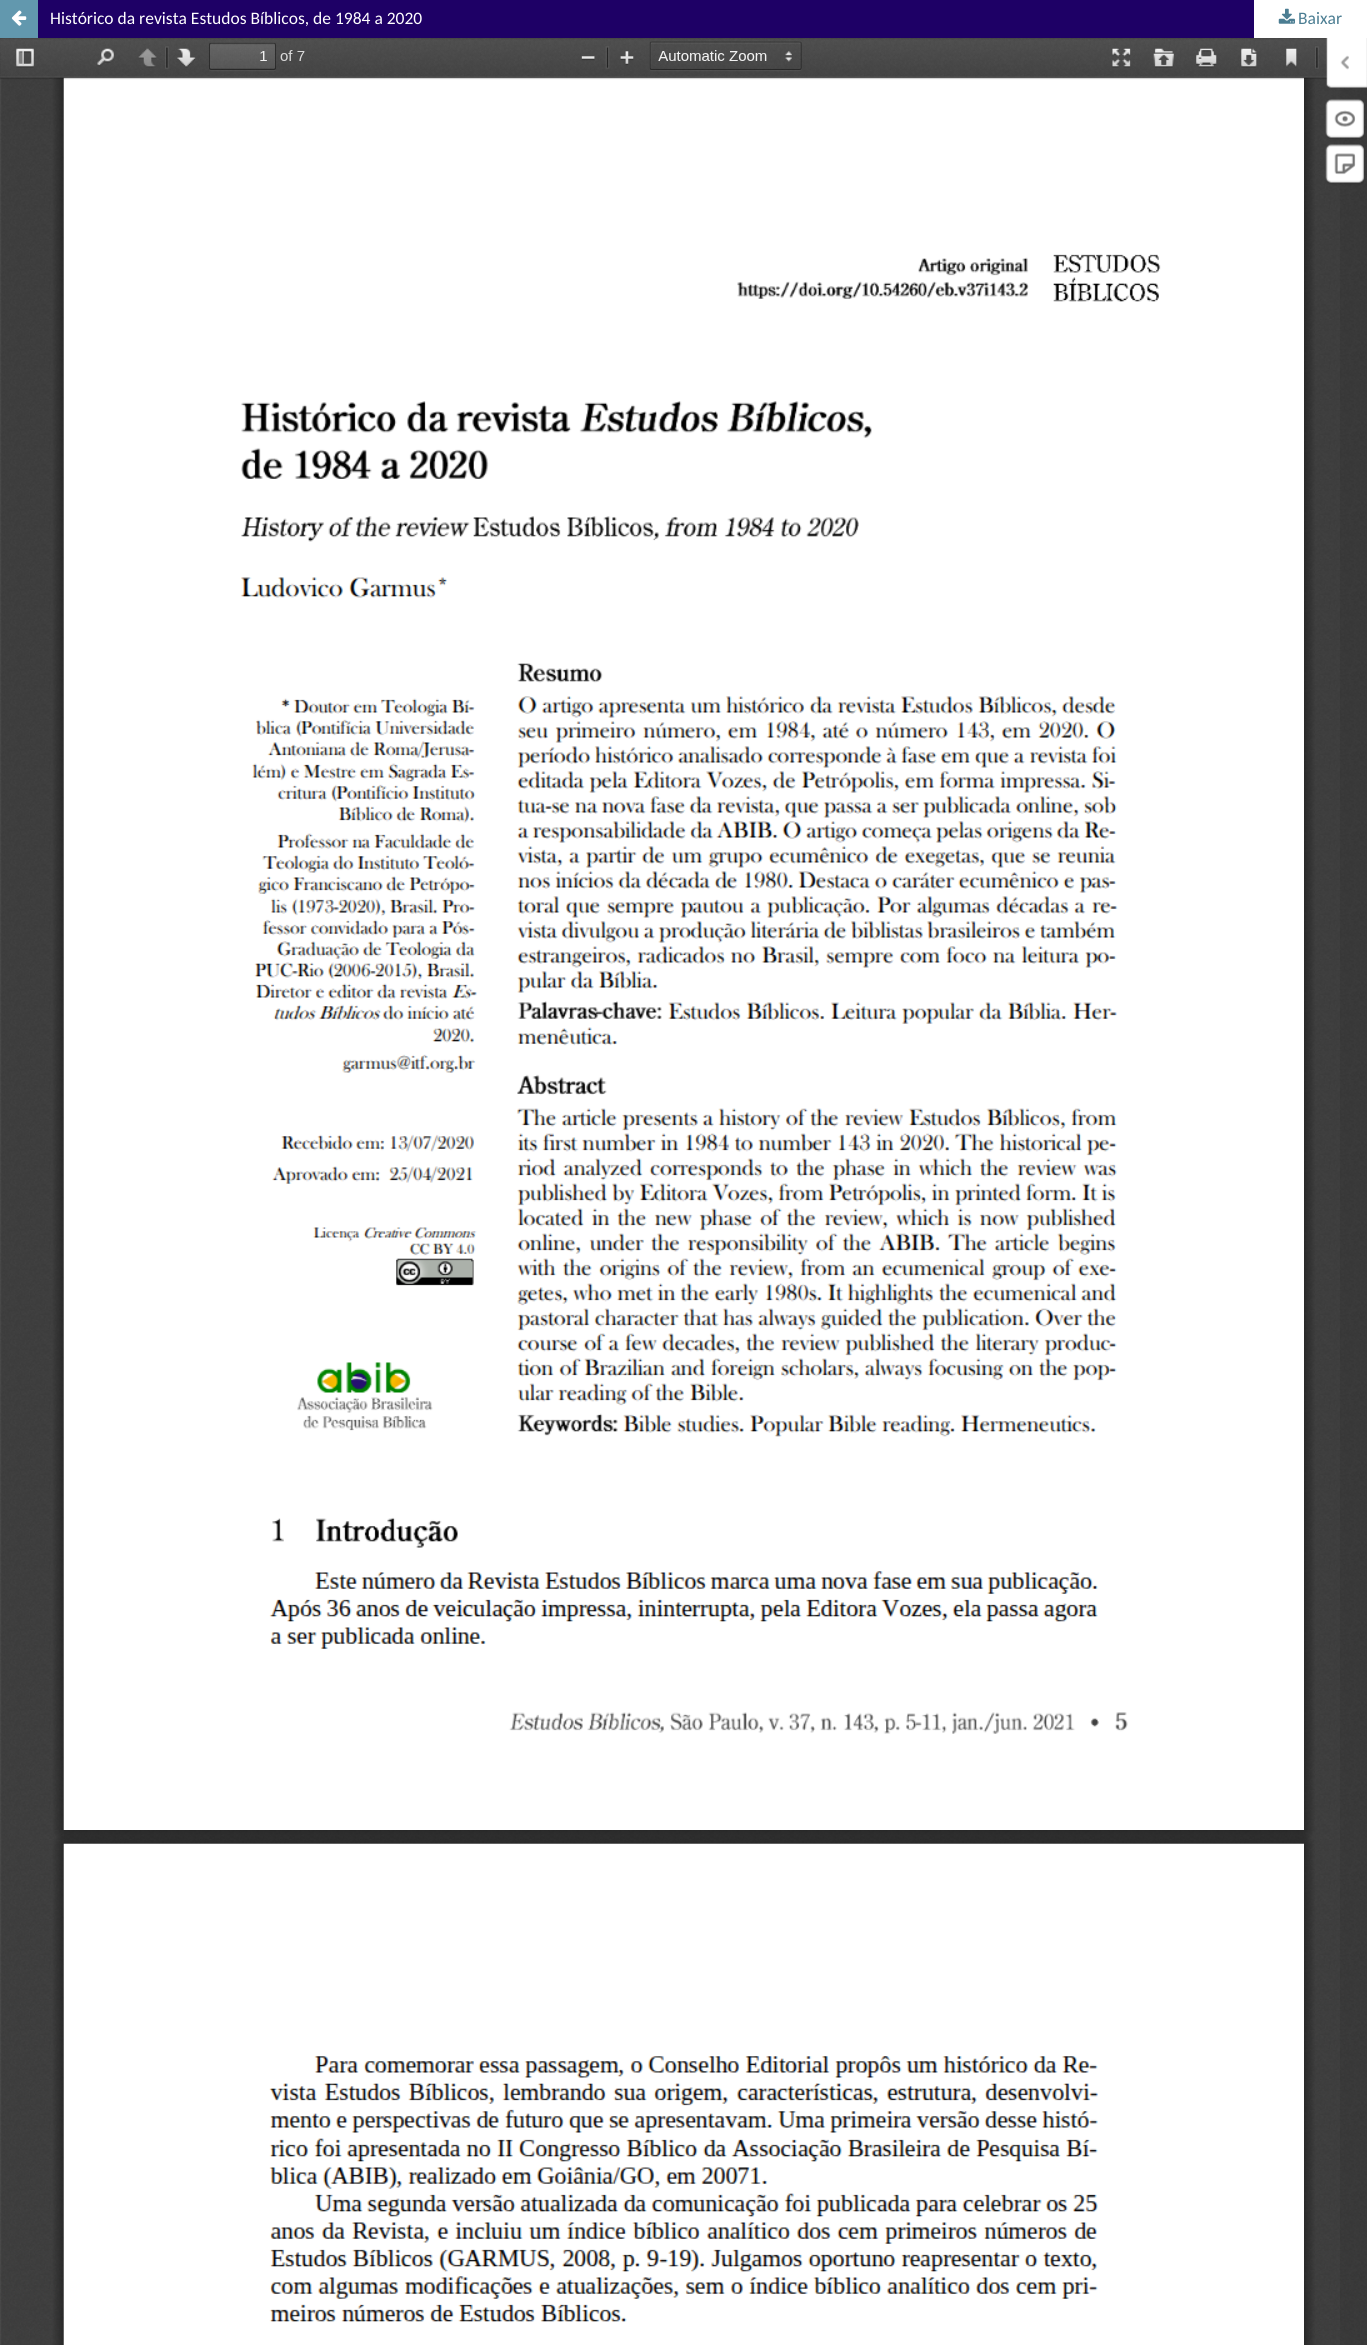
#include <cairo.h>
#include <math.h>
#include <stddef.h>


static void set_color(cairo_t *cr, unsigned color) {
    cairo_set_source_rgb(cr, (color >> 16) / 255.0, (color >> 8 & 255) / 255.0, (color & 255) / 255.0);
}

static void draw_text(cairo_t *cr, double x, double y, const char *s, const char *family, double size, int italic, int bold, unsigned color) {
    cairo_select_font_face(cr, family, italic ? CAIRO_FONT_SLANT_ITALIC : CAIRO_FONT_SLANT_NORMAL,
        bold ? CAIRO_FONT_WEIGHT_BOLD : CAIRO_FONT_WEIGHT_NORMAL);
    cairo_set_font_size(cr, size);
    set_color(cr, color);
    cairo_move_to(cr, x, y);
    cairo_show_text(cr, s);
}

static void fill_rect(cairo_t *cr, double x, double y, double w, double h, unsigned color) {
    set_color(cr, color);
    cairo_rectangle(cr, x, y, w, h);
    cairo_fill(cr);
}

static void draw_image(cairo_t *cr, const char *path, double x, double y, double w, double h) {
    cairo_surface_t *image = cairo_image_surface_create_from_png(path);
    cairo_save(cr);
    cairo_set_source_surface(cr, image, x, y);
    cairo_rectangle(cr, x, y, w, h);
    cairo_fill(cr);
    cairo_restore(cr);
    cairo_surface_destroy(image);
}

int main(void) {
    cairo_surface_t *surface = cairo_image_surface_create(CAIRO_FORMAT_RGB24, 1367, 2345);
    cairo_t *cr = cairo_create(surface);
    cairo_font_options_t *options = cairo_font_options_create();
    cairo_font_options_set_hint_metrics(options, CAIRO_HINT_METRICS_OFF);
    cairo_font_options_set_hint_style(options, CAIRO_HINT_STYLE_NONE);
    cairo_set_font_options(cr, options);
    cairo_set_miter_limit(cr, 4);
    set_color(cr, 0xFFFFFF);
    cairo_paint(cr);
    fill_rect(cr, 38, 0, 1216, 38, 0x1E0066);
    fill_rect(cr, 0, 0, 38, 38, 0x6298AE);
    draw_image(cr, "assets/img1.png", 11, 10, 16, 16);
    draw_text(cr, 50, 24, "Histórico da revista Estudos Bíblicos, de 1984 a 2020", "Carlito", 17.5, 0, 0, 0xFFFFFF);
    draw_image(cr, "assets/img2.png", 1278, 8, 17, 16);
    draw_text(cr, 1298, 24, "Baixar", "Carlito", 17.5, 0, 0, 0x4B7D92);
    draw_image(cr, "assets/img3.png", 0, 38, 1367, 2307);
    cairo_surface_write_to_png(surface, "output.png");
    cairo_font_options_destroy(options);
    cairo_destroy(cr);
    cairo_surface_destroy(surface);
    return 0;
}
